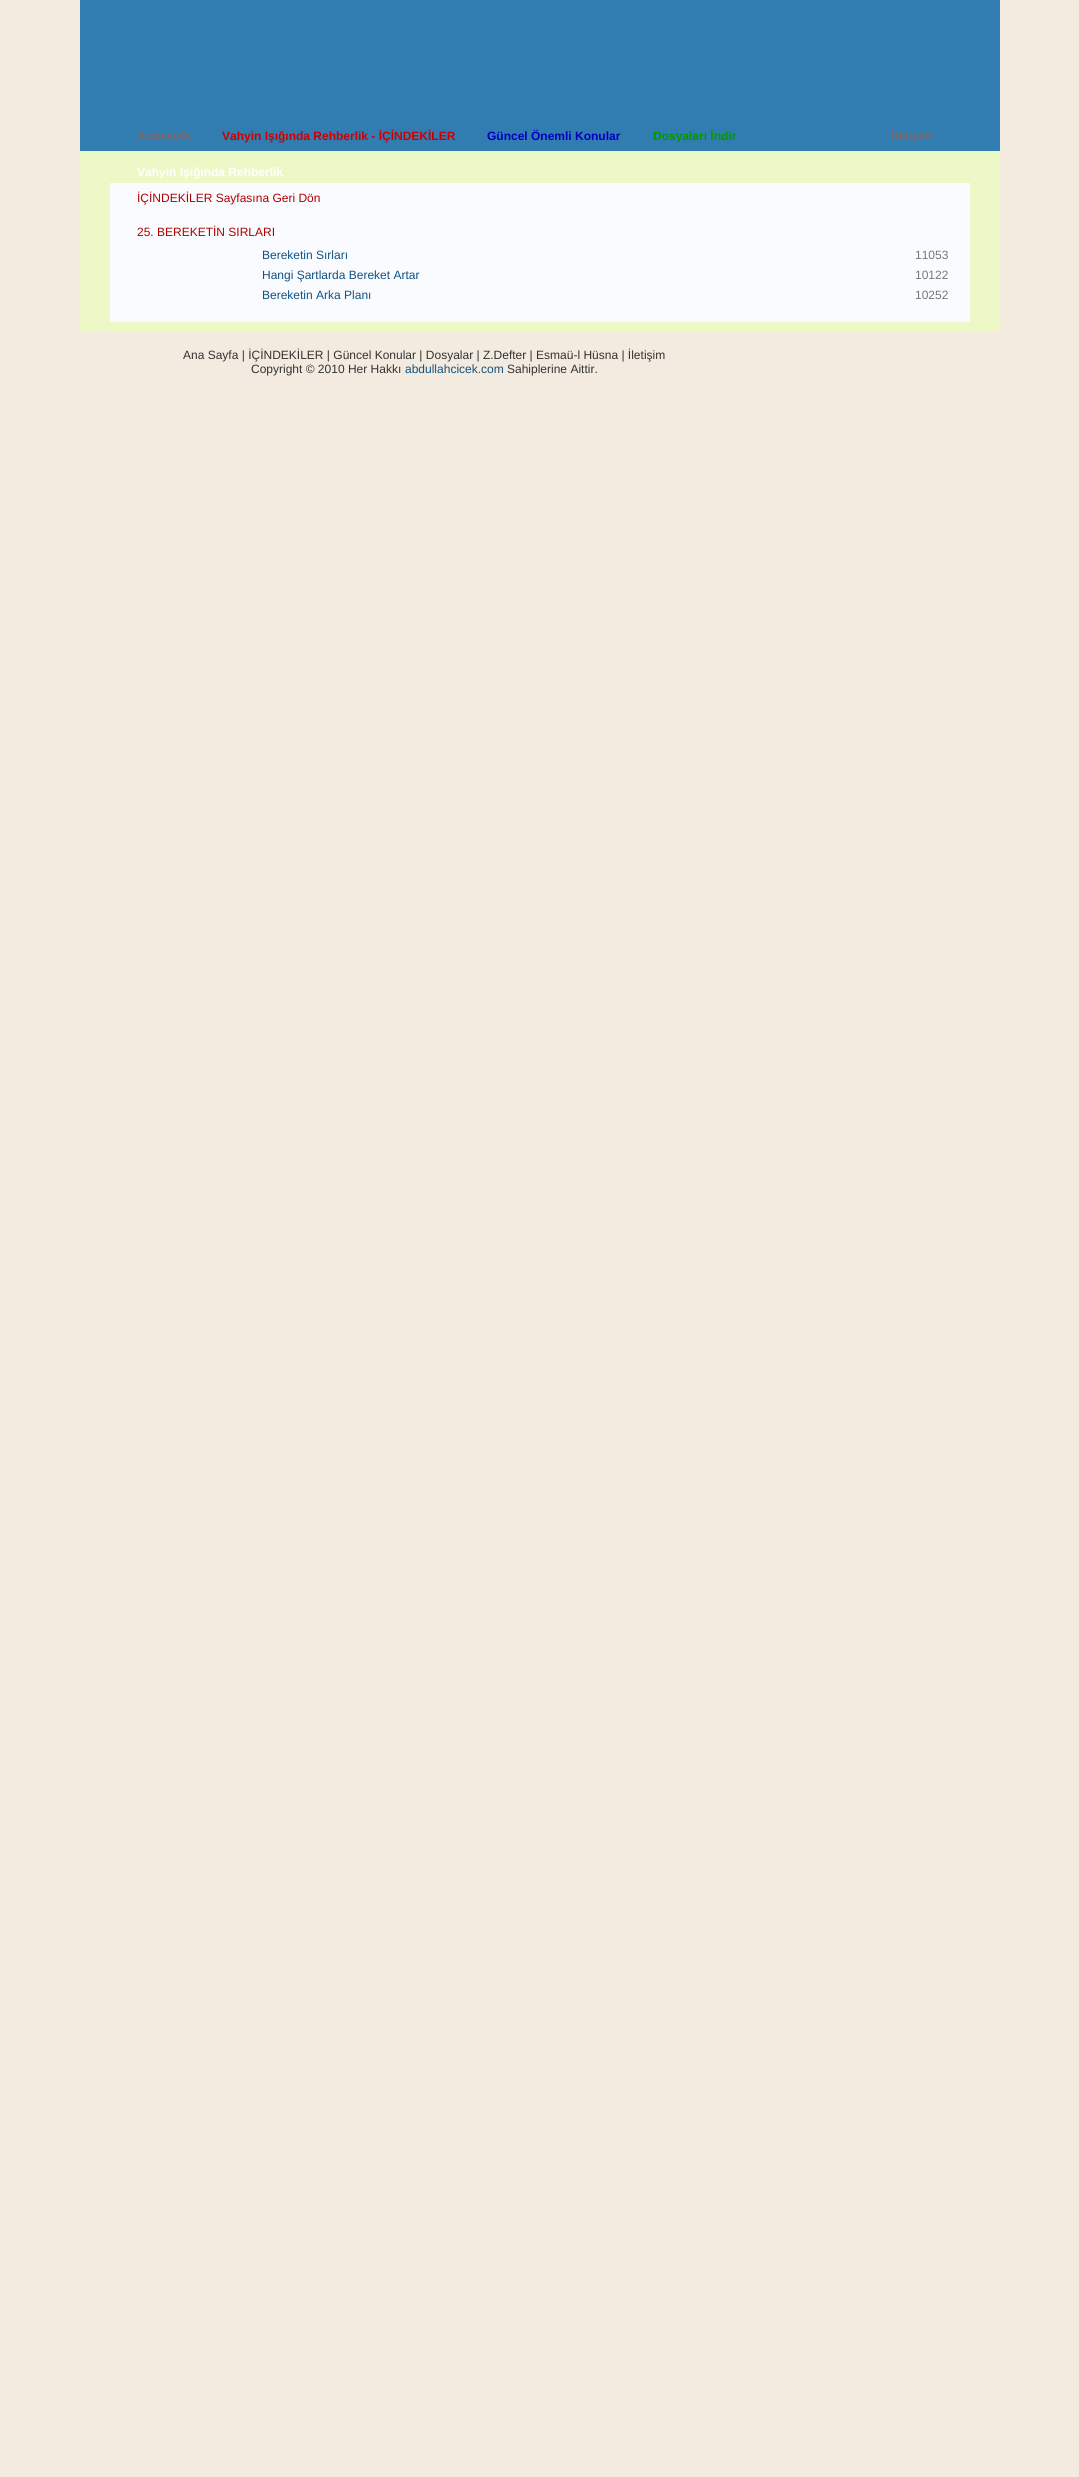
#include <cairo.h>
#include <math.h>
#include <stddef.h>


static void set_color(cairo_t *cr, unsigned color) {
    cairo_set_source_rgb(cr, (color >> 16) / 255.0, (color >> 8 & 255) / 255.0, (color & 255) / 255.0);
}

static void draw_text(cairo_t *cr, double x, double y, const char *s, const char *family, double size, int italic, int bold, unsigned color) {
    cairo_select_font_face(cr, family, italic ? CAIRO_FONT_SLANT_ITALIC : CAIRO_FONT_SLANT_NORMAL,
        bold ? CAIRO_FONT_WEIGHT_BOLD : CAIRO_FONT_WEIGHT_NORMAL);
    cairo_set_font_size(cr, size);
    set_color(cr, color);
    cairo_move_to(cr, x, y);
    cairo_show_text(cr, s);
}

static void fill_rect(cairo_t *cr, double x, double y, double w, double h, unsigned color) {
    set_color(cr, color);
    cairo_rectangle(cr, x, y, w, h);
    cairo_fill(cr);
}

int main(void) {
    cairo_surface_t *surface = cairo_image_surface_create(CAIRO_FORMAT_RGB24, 1079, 2477);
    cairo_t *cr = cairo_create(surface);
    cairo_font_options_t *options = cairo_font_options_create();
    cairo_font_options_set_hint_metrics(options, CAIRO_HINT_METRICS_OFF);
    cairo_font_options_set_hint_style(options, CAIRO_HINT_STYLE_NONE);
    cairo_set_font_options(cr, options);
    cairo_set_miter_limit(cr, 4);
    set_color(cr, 0xF3EBE0);
    cairo_paint(cr);
    fill_rect(cr, 80, 0, 920, 151, 0x317CB1);
    draw_text(cr, 137, 140, "Anasayfa", "Liberation Sans", 12, 0, 1, 0x796765);
    draw_text(cr, 222, 140, "Vahyin Işığında Rehberlik - İÇİNDEKİLER", "Liberation Sans", 12, 0, 1, 0xCC0000);
    draw_text(cr, 487, 140, "Güncel Önemli Konular", "Liberation Sans", 12, 0, 1, 0x0000BF);
    draw_text(cr, 653, 140, "Dosyaları İndir", "Liberation Sans", 12, 0, 1, 0x009900);
    draw_text(cr, 891, 140, "İletişim", "Liberation Sans", 12, 0, 1, 0x796765);
    fill_rect(cr, 80, 151, 920, 181, 0xEDF8C7);
    draw_text(cr, 137, 176, "Vahyin Işığında Rehberlik", "Liberation Sans", 12, 0, 1, 0xFFFFFF);
    fill_rect(cr, 110, 183, 860, 139, 0xF9FBFF);
    draw_text(cr, 137, 202, "İÇİNDEKİLER Sayfasına Geri Dön", "Liberation Sans", 12, 0, 0, 0xB00100);
    draw_text(cr, 137, 236, "25. BEREKETİN SIRLARI", "Liberation Sans", 12, 0, 0, 0xB00100);
    draw_text(cr, 262, 259, "Bereketin Sırları", "Liberation Sans", 12, 0, 0, 0x115280);
    draw_text(cr, 915, 259, "11053", "Liberation Sans", 12, 0, 0, 0x777777);
    draw_text(cr, 262, 279, "Hangi Şartlarda Bereket Artar", "Liberation Sans", 12, 0, 0, 0x115280);
    draw_text(cr, 915, 279, "10122", "Liberation Sans", 12, 0, 0, 0x777777);
    draw_text(cr, 262, 299, "Bereketin Arka Planı", "Liberation Sans", 12, 0, 0, 0x115280);
    draw_text(cr, 915, 299, "10252", "Liberation Sans", 12, 0, 0, 0x777777);
    draw_text(cr, 183, 359, "Ana Sayfa | İÇİNDEKİLER | Güncel Konular | Dosyalar | Z.Defter | Esmaü-l Hüsna | İletişim", "Liberation Sans", 12, 0, 0, 0x333333);
    draw_text(cr, 251, 373, "Copyright © 2010 Her Hakkı", "Liberation Sans", 12, 0, 0, 0x333333);
    draw_text(cr, 405, 373, "abdullahcicek.com", "Liberation Sans", 12, 0, 0, 0x115280);
    draw_text(cr, 507, 373, "Sahiplerine Aittir.", "Liberation Sans", 12, 0, 0, 0x333333);
    cairo_surface_write_to_png(surface, "output.png");
    cairo_font_options_destroy(options);
    cairo_destroy(cr);
    cairo_surface_destroy(surface);
    return 0;
}
